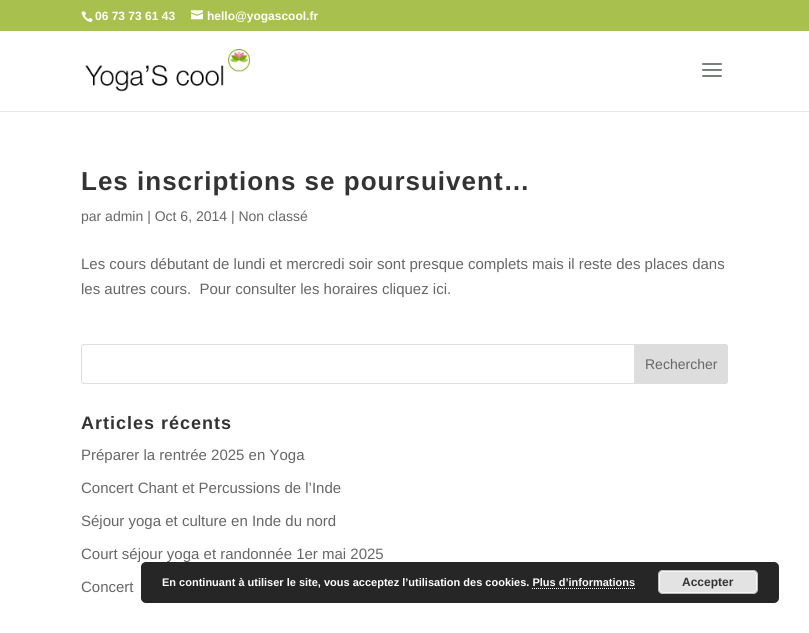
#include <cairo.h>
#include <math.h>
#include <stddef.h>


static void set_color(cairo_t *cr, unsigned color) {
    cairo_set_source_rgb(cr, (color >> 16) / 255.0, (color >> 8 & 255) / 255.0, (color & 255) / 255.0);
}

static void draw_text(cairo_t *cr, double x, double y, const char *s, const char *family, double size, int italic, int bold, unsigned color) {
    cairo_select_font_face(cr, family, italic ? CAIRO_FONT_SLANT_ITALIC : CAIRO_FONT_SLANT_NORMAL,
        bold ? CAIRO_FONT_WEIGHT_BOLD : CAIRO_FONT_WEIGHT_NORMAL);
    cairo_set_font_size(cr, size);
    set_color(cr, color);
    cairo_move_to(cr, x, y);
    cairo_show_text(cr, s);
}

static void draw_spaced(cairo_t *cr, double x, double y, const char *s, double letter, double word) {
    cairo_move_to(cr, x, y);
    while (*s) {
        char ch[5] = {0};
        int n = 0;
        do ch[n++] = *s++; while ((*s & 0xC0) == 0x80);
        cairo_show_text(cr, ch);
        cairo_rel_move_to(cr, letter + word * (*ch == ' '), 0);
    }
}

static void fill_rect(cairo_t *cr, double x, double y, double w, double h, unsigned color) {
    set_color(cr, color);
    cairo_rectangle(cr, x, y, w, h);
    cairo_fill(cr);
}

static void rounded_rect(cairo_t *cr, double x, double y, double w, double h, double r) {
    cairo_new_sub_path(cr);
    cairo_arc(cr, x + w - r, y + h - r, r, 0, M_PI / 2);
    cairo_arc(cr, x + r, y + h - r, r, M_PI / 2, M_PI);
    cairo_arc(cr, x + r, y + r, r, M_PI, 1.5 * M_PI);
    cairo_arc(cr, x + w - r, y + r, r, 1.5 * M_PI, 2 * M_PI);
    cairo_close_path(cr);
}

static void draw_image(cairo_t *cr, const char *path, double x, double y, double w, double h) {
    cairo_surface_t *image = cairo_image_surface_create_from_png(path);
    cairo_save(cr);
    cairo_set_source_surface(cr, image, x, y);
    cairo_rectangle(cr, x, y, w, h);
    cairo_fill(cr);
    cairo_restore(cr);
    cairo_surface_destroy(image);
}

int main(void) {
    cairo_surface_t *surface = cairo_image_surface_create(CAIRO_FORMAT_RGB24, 809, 633);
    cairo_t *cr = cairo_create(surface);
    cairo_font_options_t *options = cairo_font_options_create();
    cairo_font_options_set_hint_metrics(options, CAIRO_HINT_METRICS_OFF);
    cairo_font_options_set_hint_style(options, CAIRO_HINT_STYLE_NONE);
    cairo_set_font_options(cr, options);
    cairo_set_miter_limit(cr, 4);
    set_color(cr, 0xFFFFFF);
    cairo_paint(cr);
    fill_rect(cr, 0, 0, 809, 31, 0xA8C04E);
    draw_image(cr, "assets/img1.png", 81, 11, 12, 12);
    draw_text(cr, 95, 20, "06 73 73 61 43", "Liberation Sans", 12, 0, 1, 0xFFFFFF);
    draw_image(cr, "assets/img2.png", 191, 10, 12, 10);
    draw_text(cr, 207, 20, "hello@yogascool.fr", "Liberation Sans", 12, 0, 1, 0xFFFFFF);
    fill_rect(cr, 0, 111, 809, 1, 0xE6E6E6);
    draw_image(cr, "assets/img3.png", 85, 49, 165, 43);
    draw_image(cr, "assets/img4.png", 702, 63, 20, 14);
    cairo_set_font_size(cr, 26);
    set_color(cr, 0x333333);
    draw_spaced(cr, 81, 190, "Les inscriptions se poursuivent…", 1, 0);
    draw_text(cr, 81, 221, "par admin | Oct 6, 2014 | Non classé", "Liberation Sans", 14, 0, 0, 0x666666);
    draw_text(cr, 81, 269, "Les cours débutant de lundi et mercredi soir sont presque complets mais il reste des places dans", "Liberation Sans", 15, 0, 0, 0x666666);
    draw_text(cr, 81, 294, "les autres cours.  Pour consulter les horaires cliquez ici.", "Liberation Sans", 15, 0, 0, 0x666666);
    rounded_rect(cr, 81.5, 344.5, 646, 39, 2.5);
    set_color(cr, 0xDDDDDD);
    cairo_set_line_width(cr, 1);
    cairo_stroke(cr);
    cairo_new_path(cr);
    cairo_move_to(cr, 634.5, 344.5);
    cairo_line_to(cr, 725, 344.5);
    cairo_curve_to(cr, 726.5, 344.5, 727.5, 345.5, 727.5, 347);
    cairo_line_to(cr, 727.5, 381);
    cairo_curve_to(cr, 727.5, 382.5, 726.5, 383.5, 725, 383.5);
    cairo_line_to(cr, 634.5, 383.5);
    cairo_close_path(cr);
    cairo_fill_preserve(cr);
    cairo_stroke(cr);
    draw_text(cr, 645, 369, "Rechercher", "Liberation Sans", 14, 0, 0, 0x666666);
    cairo_select_font_face(cr, "Liberation Sans", CAIRO_FONT_SLANT_NORMAL, CAIRO_FONT_WEIGHT_BOLD);
    cairo_set_font_size(cr, 18);
    set_color(cr, 0x333333);
    draw_spaced(cr, 81, 429, "Articles récents", 1, 0);
    draw_text(cr, 81, 460, "Préparer la rentrée 2025 en Yoga", "Liberation Sans", 15, 0, 0, 0x666666);
    draw_text(cr, 81, 493, "Concert Chant et Percussions de l’Inde", "Liberation Sans", 15, 0, 0, 0x666666);
    draw_text(cr, 81, 526, "Séjour yoga et culture en Inde du nord", "Liberation Sans", 15, 0, 0, 0x666666);
    draw_text(cr, 81, 559, "Court séjour yoga et randonnée 1er mai 2025", "Liberation Sans", 15, 0, 0, 0x666666);
    draw_text(cr, 81, 592, "Concert", "Liberation Sans", 15, 0, 0, 0x666666);
    cairo_set_source_rgba(cr, 0, 0, 0, 0.85);
    rounded_rect(cr, 141, 562, 638, 41, 5);
    cairo_fill(cr);
    draw_text(cr, 162, 586, "En continuant à utiliser le site, vous acceptez l’utilisation des cookies. Plus d’informations", "Liberation Sans", 11, 0, 1, 0xFFFFFF);
    set_color(cr, 0xE3E3E3);
    rounded_rect(cr, 658, 570, 100, 24, 5);
    cairo_fill(cr);
    rounded_rect(cr, 659.5, 571.5, 97, 21, 3.5);
    set_color(cr, 0xF6F6F6);
    cairo_stroke(cr);
    rounded_rect(cr, 658.5, 570.5, 99, 23, 4.5);
    set_color(cr, 0xBBBBBB);
    cairo_stroke(cr);
    draw_text(cr, 682, 586, "Accepter", "Liberation Sans", 12, 0, 1, 0x333333);
    cairo_new_path(cr);
    cairo_move_to(cr, 532, 588.5);
    cairo_line_to(cr, 635, 588.5);
    set_color(cr, 0xFFFFFF);
    cairo_set_dash(cr, (double[]){1, 1}, 2, 0);
    cairo_stroke(cr);
    cairo_surface_write_to_png(surface, "output.png");
    cairo_font_options_destroy(options);
    cairo_destroy(cr);
    cairo_surface_destroy(surface);
    return 0;
}
